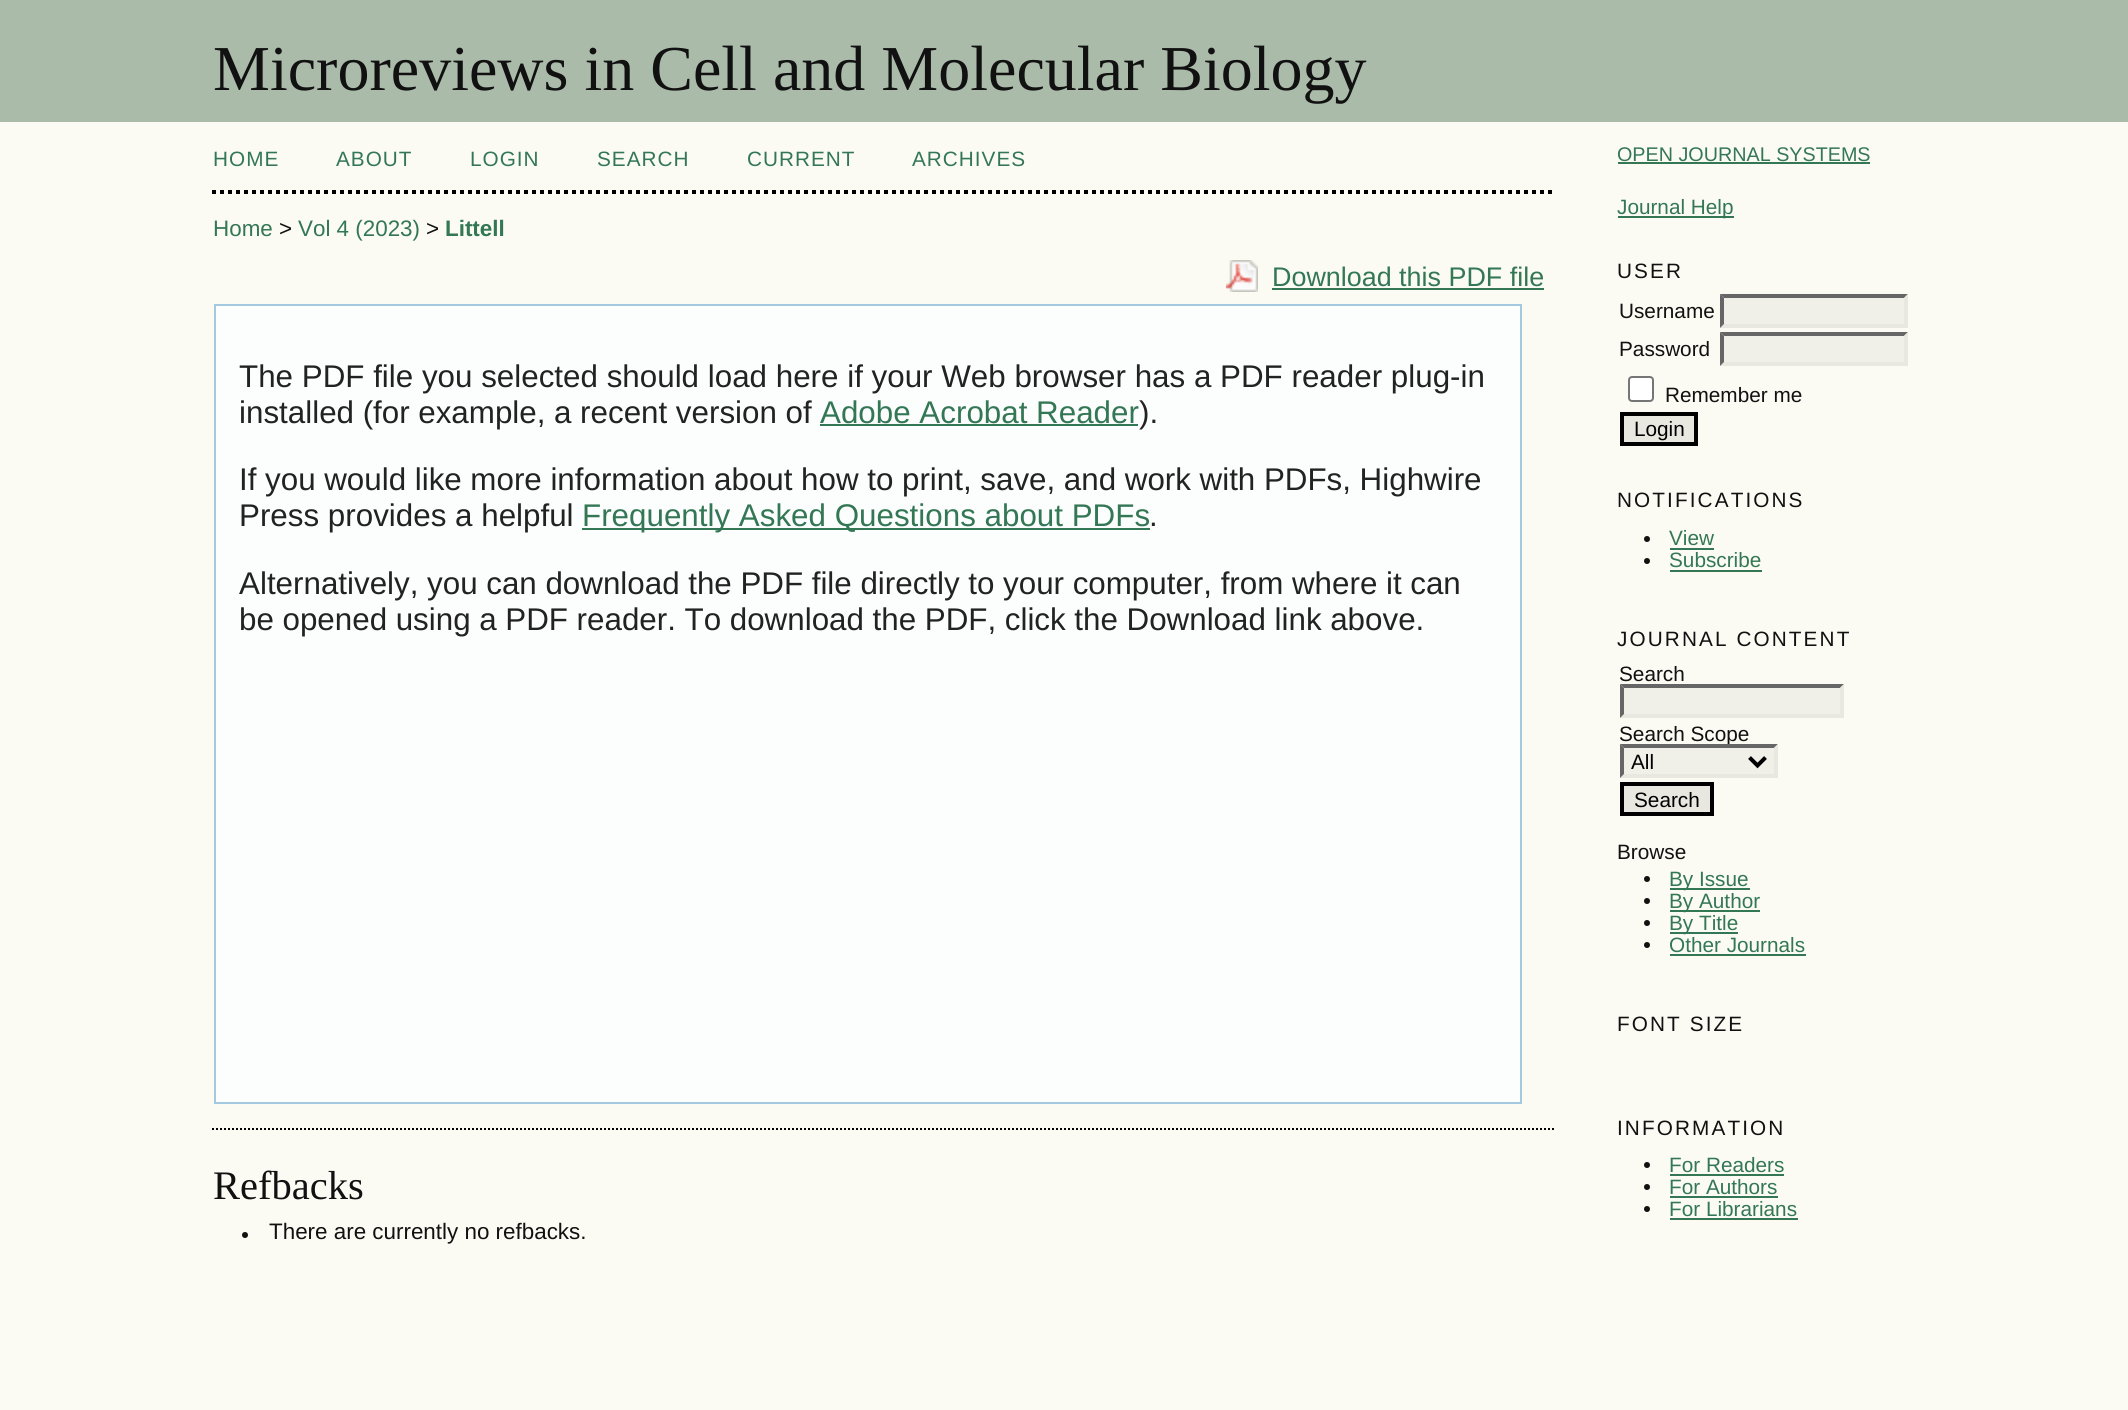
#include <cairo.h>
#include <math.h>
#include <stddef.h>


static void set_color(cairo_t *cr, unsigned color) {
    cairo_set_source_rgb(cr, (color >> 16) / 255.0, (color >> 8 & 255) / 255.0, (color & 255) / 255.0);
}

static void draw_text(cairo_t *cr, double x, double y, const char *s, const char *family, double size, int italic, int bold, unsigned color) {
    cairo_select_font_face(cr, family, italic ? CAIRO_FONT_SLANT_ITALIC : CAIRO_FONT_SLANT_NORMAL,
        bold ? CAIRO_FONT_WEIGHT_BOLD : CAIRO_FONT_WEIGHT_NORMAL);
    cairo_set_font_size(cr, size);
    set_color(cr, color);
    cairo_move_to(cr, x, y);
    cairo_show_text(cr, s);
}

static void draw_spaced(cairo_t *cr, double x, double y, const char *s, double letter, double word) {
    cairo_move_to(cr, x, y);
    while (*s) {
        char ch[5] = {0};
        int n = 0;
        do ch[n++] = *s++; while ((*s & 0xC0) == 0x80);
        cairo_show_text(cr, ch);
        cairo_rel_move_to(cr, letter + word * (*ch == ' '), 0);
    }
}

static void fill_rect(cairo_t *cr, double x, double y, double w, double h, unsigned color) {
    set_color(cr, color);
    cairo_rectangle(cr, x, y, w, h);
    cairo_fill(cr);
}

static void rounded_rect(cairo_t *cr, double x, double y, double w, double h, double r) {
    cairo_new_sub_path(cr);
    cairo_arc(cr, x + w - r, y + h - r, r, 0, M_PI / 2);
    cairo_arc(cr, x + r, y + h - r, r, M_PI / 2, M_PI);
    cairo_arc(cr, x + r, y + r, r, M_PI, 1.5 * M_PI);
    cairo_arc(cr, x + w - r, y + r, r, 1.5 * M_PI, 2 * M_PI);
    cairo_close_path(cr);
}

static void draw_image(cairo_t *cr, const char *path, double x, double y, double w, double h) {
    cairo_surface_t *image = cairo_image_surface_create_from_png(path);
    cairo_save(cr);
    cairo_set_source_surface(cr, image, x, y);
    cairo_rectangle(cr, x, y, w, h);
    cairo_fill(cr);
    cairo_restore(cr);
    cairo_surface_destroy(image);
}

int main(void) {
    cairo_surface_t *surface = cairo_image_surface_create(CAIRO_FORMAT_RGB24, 2128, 1410);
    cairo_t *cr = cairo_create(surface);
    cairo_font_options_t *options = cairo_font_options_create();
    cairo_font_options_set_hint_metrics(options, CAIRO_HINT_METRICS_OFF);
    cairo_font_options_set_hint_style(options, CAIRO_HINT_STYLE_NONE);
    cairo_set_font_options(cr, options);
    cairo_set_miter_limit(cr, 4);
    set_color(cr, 0xFBFBF3);
    cairo_paint(cr);
    fill_rect(cr, 0, 0, 2128, 122, 0xAABBAA);
    draw_text(cr, 213, 90, "Microreviews in Cell and Molecular Biology", "Liberation Serif", 64, 0, 0, 0x111111);
    cairo_new_path(cr);
    cairo_move_to(cr, 212, 192);
    cairo_line_to(cr, 1554, 192);
    set_color(cr, 0x000000);
    cairo_set_line_width(cr, 4);
    cairo_set_dash(cr, (double[]){4, 4}, 2, 0);
    cairo_stroke(cr);
    cairo_select_font_face(cr, "Liberation Sans", CAIRO_FONT_SLANT_NORMAL, CAIRO_FONT_WEIGHT_NORMAL);
    cairo_set_font_size(cr, 20.75);
    set_color(cr, 0x337755);
    draw_spaced(cr, 213, 166, "HOME", 1, 0);
    draw_spaced(cr, 336, 166, "ABOUT", 1, 0);
    draw_spaced(cr, 470, 166, "LOGIN", 1, 0);
    draw_spaced(cr, 597, 166, "SEARCH", 1, 0);
    draw_spaced(cr, 747, 166, "CURRENT", 1, 0);
    draw_spaced(cr, 912, 166, "ARCHIVES", 1, 0);
    draw_text(cr, 213, 236, "Home", "Liberation Sans", 22.4, 0, 0, 0x337755);
    draw_text(cr, 279, 236, ">", "Liberation Sans", 22.4, 0, 0, 0x111111);
    draw_text(cr, 298, 236, "Vol 4 (2023)", "Liberation Sans", 22.4, 0, 0, 0x337755);
    draw_text(cr, 426, 236, ">", "Liberation Sans", 22.4, 0, 0, 0x111111);
    draw_text(cr, 445, 236, "Littell", "Liberation Sans", 22.4, 0, 1, 0x337755);
    draw_image(cr, "assets/img1.png", 1226, 260, 32, 32);
    draw_text(cr, 1272, 286, "Download this PDF file", "Liberation Sans", 26.9, 0, 0, 0x337755);
    fill_rect(cr, 1272, 288, 272, 2, 0x337755);
    set_color(cr, 0xFCFDFD);
    cairo_rectangle(cr, 215, 305, 1306, 798);
    cairo_fill_preserve(cr);
    set_color(cr, 0xA6C9E2);
    cairo_set_line_width(cr, 2);
    cairo_set_dash(cr, NULL, 0, 0);
    cairo_stroke(cr);
    draw_text(cr, 239, 387, "The PDF file you selected should load here if your Web browser has a PDF reader plug-in", "Liberation Sans", 31.35, 0, 0, 0x222222);
    draw_spaced(cr, 239, 423, "installed (for example, a recent version of", 0, -0.1);
    draw_text(cr, 820, 423, "Adobe Acrobat Reader", "Liberation Sans", 31.35, 0, 0, 0x337755);
    fill_rect(cr, 820, 424, 318, 2, 0x337755);
    draw_text(cr, 1139, 423, ").", "Liberation Sans", 31.35, 0, 0, 0x222222);
    draw_spaced(cr, 239, 490, "If you would like more information about how to print, save, and work with PDFs, Highwire", 0, -0.1);
    draw_text(cr, 239, 526, "Press provides a helpful", "Liberation Sans", 31.35, 0, 0, 0x222222);
    fill_rect(cr, 582, 528, 568, 2, 0x337755);
    draw_text(cr, 582, 526, "Frequently Asked Questions about PDFs", "Liberation Sans", 31.35, 0, 0, 0x337755);
    draw_text(cr, 1149, 526, ".", "Liberation Sans", 31.35, 0, 0, 0x222222);
    draw_spaced(cr, 239, 594, "Alternatively, you can download the PDF file directly to your computer, from where it can", 0, -0.1);
    draw_spaced(cr, 239, 630, "be opened using a PDF reader. To download the PDF, click the Download link above.", 0, -0.1);
    cairo_new_path(cr);
    cairo_move_to(cr, 212, 1129);
    cairo_line_to(cr, 1554, 1129);
    set_color(cr, 0x000000);
    cairo_set_dash(cr, (double[]){2, 2}, 2, 0);
    cairo_stroke(cr);
    draw_text(cr, 213, 1199, "Refbacks", "Liberation Serif", 40.5, 0, 0, 0x111111);
    cairo_new_path(cr);
    cairo_arc(cr, 245, 1235, 3, 0, 2 * M_PI);
    cairo_fill(cr);
    draw_text(cr, 269, 1239, "There are currently no refbacks.", "Liberation Sans", 22.4, 0, 0, 0x111111);
    draw_text(cr, 1617, 161, "OPEN JOURNAL SYSTEMS", "Liberation Sans", 19.75, 0, 0, 0x337755);
    fill_rect(cr, 1618, 162, 252, 2, 0x337755);
    fill_rect(cr, 1618, 216, 116, 2, 0x337755);
    draw_text(cr, 1617, 214, "Journal Help", "Liberation Sans", 20.75, 0, 0, 0x337755);
    set_color(cr, 0x111111);
    draw_spaced(cr, 1617, 278, "USER", 2.1, 0);
    draw_text(cr, 1619, 318, "Username", "Liberation Sans", 20.75, 0, 0, 0x111111);
    fill_rect(cr, 1720, 294, 188, 34, 0xF0F0E8);
    set_color(cr, 0x666666);
    cairo_new_path(cr);
    cairo_move_to(cr, 1720, 294);
    cairo_line_to(cr, 1908, 294);
    cairo_line_to(cr, 1904, 298);
    cairo_line_to(cr, 1724, 298);
    cairo_close_path(cr);
    cairo_fill(cr);
    set_color(cr, 0xE8E8E1);
    cairo_new_path(cr);
    cairo_move_to(cr, 1908, 294);
    cairo_line_to(cr, 1908, 328);
    cairo_line_to(cr, 1904, 324);
    cairo_line_to(cr, 1904, 298);
    cairo_close_path(cr);
    cairo_fill(cr);
    cairo_new_path(cr);
    cairo_move_to(cr, 1908, 328);
    cairo_line_to(cr, 1720, 328);
    cairo_line_to(cr, 1724, 324);
    cairo_line_to(cr, 1904, 324);
    cairo_close_path(cr);
    cairo_fill(cr);
    set_color(cr, 0x666666);
    cairo_new_path(cr);
    cairo_move_to(cr, 1720, 328);
    cairo_line_to(cr, 1720, 294);
    cairo_line_to(cr, 1724, 298);
    cairo_line_to(cr, 1724, 324);
    cairo_close_path(cr);
    cairo_fill(cr);
    draw_text(cr, 1619, 356, "Password", "Liberation Sans", 20.75, 0, 0, 0x111111);
    fill_rect(cr, 1720, 332, 188, 34, 0xF0F0E8);
    set_color(cr, 0x666666);
    cairo_new_path(cr);
    cairo_move_to(cr, 1720, 332);
    cairo_line_to(cr, 1908, 332);
    cairo_line_to(cr, 1904, 336);
    cairo_line_to(cr, 1724, 336);
    cairo_close_path(cr);
    cairo_fill(cr);
    set_color(cr, 0xE8E8E1);
    cairo_new_path(cr);
    cairo_move_to(cr, 1908, 332);
    cairo_line_to(cr, 1908, 366);
    cairo_line_to(cr, 1904, 362);
    cairo_line_to(cr, 1904, 336);
    cairo_close_path(cr);
    cairo_fill(cr);
    cairo_new_path(cr);
    cairo_move_to(cr, 1908, 366);
    cairo_line_to(cr, 1720, 366);
    cairo_line_to(cr, 1724, 362);
    cairo_line_to(cr, 1904, 362);
    cairo_close_path(cr);
    cairo_fill(cr);
    set_color(cr, 0x666666);
    cairo_new_path(cr);
    cairo_move_to(cr, 1720, 366);
    cairo_line_to(cr, 1720, 332);
    cairo_line_to(cr, 1724, 336);
    cairo_line_to(cr, 1724, 362);
    cairo_close_path(cr);
    cairo_fill(cr);
    set_color(cr, 0xFFFFFF);
    rounded_rect(cr, 1629, 377, 24, 24, 3);
    cairo_fill_preserve(cr);
    set_color(cr, 0x767676);
    cairo_set_dash(cr, NULL, 0, 0);
    cairo_stroke(cr);
    draw_text(cr, 1665, 402, "Remember me", "Liberation Sans", 20.75, 0, 0, 0x111111);
    set_color(cr, 0xE8E8E1);
    cairo_rectangle(cr, 1622, 414, 74, 30);
    cairo_fill_preserve(cr);
    set_color(cr, 0x000000);
    cairo_set_line_width(cr, 4);
    cairo_stroke(cr);
    draw_text(cr, 1634, 436, "Login", "Liberation Sans", 20.75, 0, 0, 0x000000);
    set_color(cr, 0x111111);
    draw_spaced(cr, 1617, 507, "NOTIFICATIONS", 2.1, 0);
    cairo_new_path(cr);
    cairo_arc(cr, 1647, 539, 3, 0, 2 * M_PI);
    cairo_fill(cr);
    draw_text(cr, 1669, 545, "View", "Liberation Sans", 20.75, 0, 0, 0x337755);
    fill_rect(cr, 1670, 548, 44, 2, 0x337755);
    set_color(cr, 0x111111);
    cairo_new_path(cr);
    cairo_arc(cr, 1647, 561, 3, 0, 2 * M_PI);
    cairo_fill(cr);
    draw_text(cr, 1669, 567, "Subscribe", "Liberation Sans", 20.75, 0, 0, 0x337755);
    fill_rect(cr, 1670, 570, 92, 2, 0x337755);
    set_color(cr, 0x111111);
    draw_spaced(cr, 1617, 646, "JOURNAL CONTENT", 2.1, 0);
    draw_text(cr, 1619, 681, "Search", "Liberation Sans", 20.75, 0, 0, 0x111111);
    fill_rect(cr, 1620, 684, 224, 34, 0xF0F0E8);
    set_color(cr, 0x666666);
    cairo_new_path(cr);
    cairo_move_to(cr, 1620, 684);
    cairo_line_to(cr, 1844, 684);
    cairo_line_to(cr, 1840, 688);
    cairo_line_to(cr, 1624, 688);
    cairo_close_path(cr);
    cairo_fill(cr);
    set_color(cr, 0xE8E8E1);
    cairo_new_path(cr);
    cairo_move_to(cr, 1844, 684);
    cairo_line_to(cr, 1844, 718);
    cairo_line_to(cr, 1840, 714);
    cairo_line_to(cr, 1840, 688);
    cairo_close_path(cr);
    cairo_fill(cr);
    cairo_new_path(cr);
    cairo_move_to(cr, 1844, 718);
    cairo_line_to(cr, 1620, 718);
    cairo_line_to(cr, 1624, 714);
    cairo_line_to(cr, 1840, 714);
    cairo_close_path(cr);
    cairo_fill(cr);
    set_color(cr, 0x666666);
    cairo_new_path(cr);
    cairo_move_to(cr, 1620, 718);
    cairo_line_to(cr, 1620, 684);
    cairo_line_to(cr, 1624, 688);
    cairo_line_to(cr, 1624, 714);
    cairo_close_path(cr);
    cairo_fill(cr);
    draw_text(cr, 1619, 741, "Search Scope", "Liberation Sans", 20.75, 0, 0, 0x111111);
    fill_rect(cr, 1620, 744, 158, 34, 0xF0F0E8);
    set_color(cr, 0x666666);
    cairo_new_path(cr);
    cairo_move_to(cr, 1620, 744);
    cairo_line_to(cr, 1778, 744);
    cairo_line_to(cr, 1774, 748);
    cairo_line_to(cr, 1624, 748);
    cairo_close_path(cr);
    cairo_fill(cr);
    set_color(cr, 0xE8E8E1);
    cairo_new_path(cr);
    cairo_move_to(cr, 1778, 744);
    cairo_line_to(cr, 1778, 778);
    cairo_line_to(cr, 1774, 774);
    cairo_line_to(cr, 1774, 748);
    cairo_close_path(cr);
    cairo_fill(cr);
    cairo_new_path(cr);
    cairo_move_to(cr, 1778, 778);
    cairo_line_to(cr, 1620, 778);
    cairo_line_to(cr, 1624, 774);
    cairo_line_to(cr, 1774, 774);
    cairo_close_path(cr);
    cairo_fill(cr);
    set_color(cr, 0x666666);
    cairo_new_path(cr);
    cairo_move_to(cr, 1620, 778);
    cairo_line_to(cr, 1620, 744);
    cairo_line_to(cr, 1624, 748);
    cairo_line_to(cr, 1624, 774);
    cairo_close_path(cr);
    cairo_fill(cr);
    cairo_new_path(cr);
    cairo_move_to(cr, 1749.5, 757.5);
    cairo_line_to(cr, 1757.5, 765.5);
    cairo_line_to(cr, 1765.5, 757.5);
    set_color(cr, 0x000000);
    cairo_stroke(cr);
    draw_text(cr, 1631, 769, "All", "Liberation Sans", 20.75, 0, 0, 0x000000);
    set_color(cr, 0xE8E8E1);
    cairo_rectangle(cr, 1622, 784, 90, 30);
    cairo_fill_preserve(cr);
    set_color(cr, 0x000000);
    cairo_stroke(cr);
    draw_text(cr, 1634, 807, "Search", "Liberation Sans", 20.75, 0, 0, 0x000000);
    draw_text(cr, 1617, 859, "Browse", "Liberation Sans", 20.75, 0, 0, 0x111111);
    cairo_new_path(cr);
    cairo_arc(cr, 1647, 879, 3, 0, 2 * M_PI);
    cairo_fill(cr);
    fill_rect(cr, 1670, 888, 80, 2, 0x337755);
    draw_text(cr, 1669, 886, "By Issue", "Liberation Sans", 20.75, 0, 0, 0x337755);
    set_color(cr, 0x111111);
    cairo_new_path(cr);
    cairo_arc(cr, 1647, 901, 3, 0, 2 * M_PI);
    cairo_fill(cr);
    fill_rect(cr, 1670, 910, 90, 2, 0x337755);
    draw_text(cr, 1669, 908, "By Author", "Liberation Sans", 20.75, 0, 0, 0x337755);
    set_color(cr, 0x111111);
    cairo_new_path(cr);
    cairo_arc(cr, 1647, 923, 3, 0, 2 * M_PI);
    cairo_fill(cr);
    fill_rect(cr, 1670, 932, 68, 2, 0x337755);
    draw_text(cr, 1669, 930, "By Title", "Liberation Sans", 20.75, 0, 0, 0x337755);
    set_color(cr, 0x111111);
    cairo_new_path(cr);
    cairo_arc(cr, 1647, 945, 3, 0, 2 * M_PI);
    cairo_fill(cr);
    draw_text(cr, 1669, 952, "Other Journals", "Liberation Sans", 20.75, 0, 0, 0x337755);
    fill_rect(cr, 1670, 954, 136, 2, 0x337755);
    set_color(cr, 0x111111);
    draw_spaced(cr, 1617, 1031, "FONT SIZE", 2.1, 0);
    draw_spaced(cr, 1617, 1135, "INFORMATION", 2.1, 0);
    cairo_new_path(cr);
    cairo_arc(cr, 1647, 1165, 3, 0, 2 * M_PI);
    cairo_fill(cr);
    draw_text(cr, 1669, 1172, "For Readers", "Liberation Sans", 20.75, 0, 0, 0x337755);
    fill_rect(cr, 1670, 1174, 114, 2, 0x337755);
    set_color(cr, 0x111111);
    cairo_new_path(cr);
    cairo_arc(cr, 1647, 1187, 3, 0, 2 * M_PI);
    cairo_fill(cr);
    draw_text(cr, 1669, 1194, "For Authors", "Liberation Sans", 20.75, 0, 0, 0x337755);
    fill_rect(cr, 1670, 1196, 108, 2, 0x337755);
    set_color(cr, 0x111111);
    cairo_new_path(cr);
    cairo_arc(cr, 1647, 1209, 3, 0, 2 * M_PI);
    cairo_fill(cr);
    draw_text(cr, 1669, 1216, "For Librarians", "Liberation Sans", 20.75, 0, 0, 0x337755);
    fill_rect(cr, 1670, 1218, 128, 2, 0x337755);
    cairo_surface_write_to_png(surface, "output.png");
    cairo_font_options_destroy(options);
    cairo_destroy(cr);
    cairo_surface_destroy(surface);
    return 0;
}
